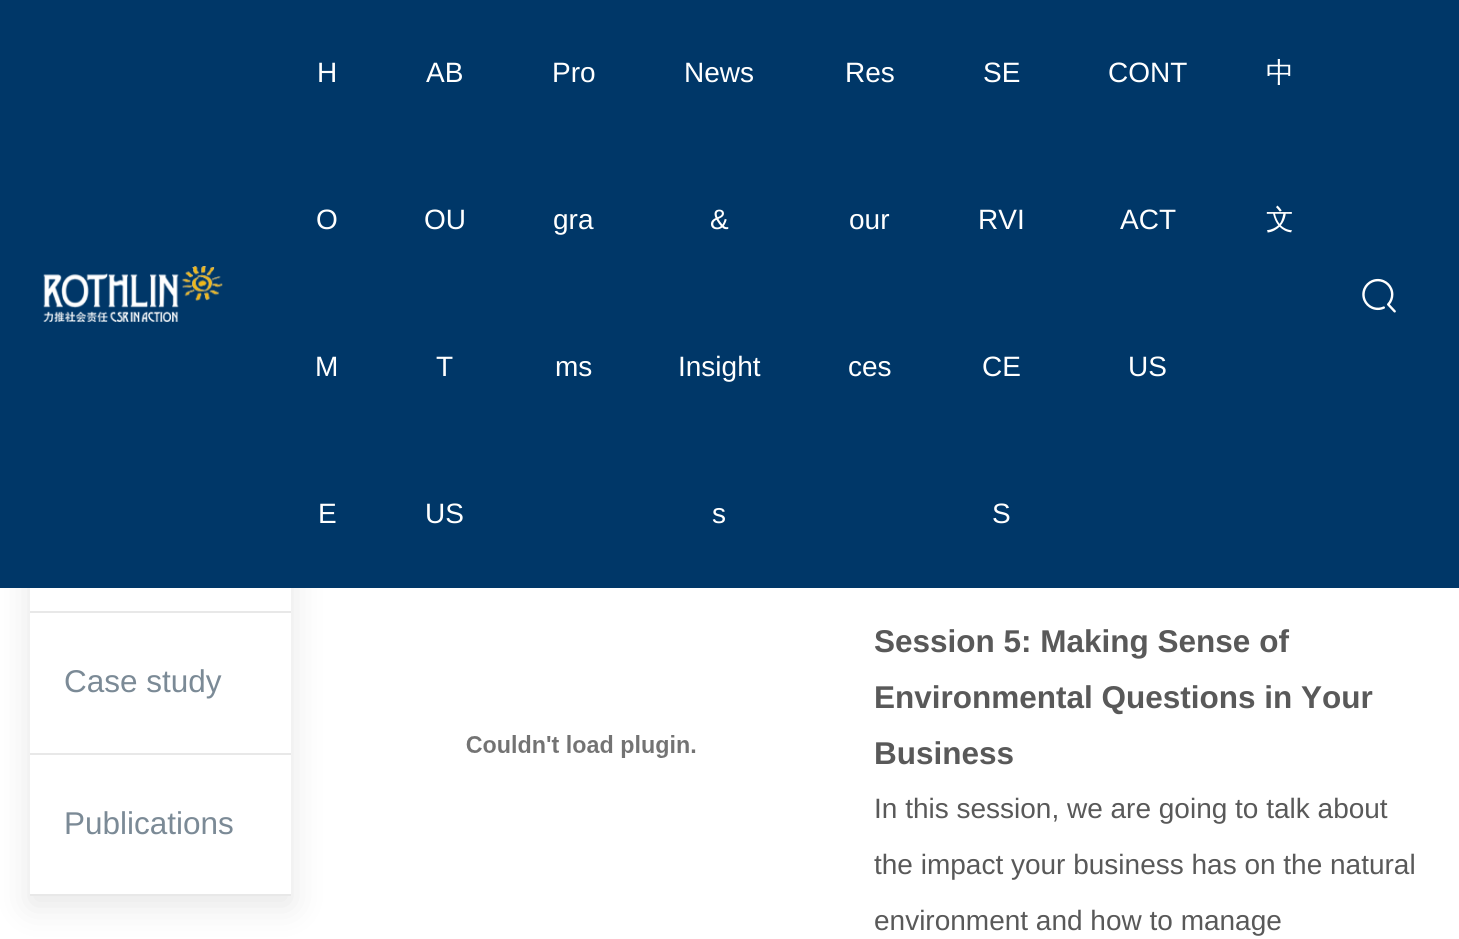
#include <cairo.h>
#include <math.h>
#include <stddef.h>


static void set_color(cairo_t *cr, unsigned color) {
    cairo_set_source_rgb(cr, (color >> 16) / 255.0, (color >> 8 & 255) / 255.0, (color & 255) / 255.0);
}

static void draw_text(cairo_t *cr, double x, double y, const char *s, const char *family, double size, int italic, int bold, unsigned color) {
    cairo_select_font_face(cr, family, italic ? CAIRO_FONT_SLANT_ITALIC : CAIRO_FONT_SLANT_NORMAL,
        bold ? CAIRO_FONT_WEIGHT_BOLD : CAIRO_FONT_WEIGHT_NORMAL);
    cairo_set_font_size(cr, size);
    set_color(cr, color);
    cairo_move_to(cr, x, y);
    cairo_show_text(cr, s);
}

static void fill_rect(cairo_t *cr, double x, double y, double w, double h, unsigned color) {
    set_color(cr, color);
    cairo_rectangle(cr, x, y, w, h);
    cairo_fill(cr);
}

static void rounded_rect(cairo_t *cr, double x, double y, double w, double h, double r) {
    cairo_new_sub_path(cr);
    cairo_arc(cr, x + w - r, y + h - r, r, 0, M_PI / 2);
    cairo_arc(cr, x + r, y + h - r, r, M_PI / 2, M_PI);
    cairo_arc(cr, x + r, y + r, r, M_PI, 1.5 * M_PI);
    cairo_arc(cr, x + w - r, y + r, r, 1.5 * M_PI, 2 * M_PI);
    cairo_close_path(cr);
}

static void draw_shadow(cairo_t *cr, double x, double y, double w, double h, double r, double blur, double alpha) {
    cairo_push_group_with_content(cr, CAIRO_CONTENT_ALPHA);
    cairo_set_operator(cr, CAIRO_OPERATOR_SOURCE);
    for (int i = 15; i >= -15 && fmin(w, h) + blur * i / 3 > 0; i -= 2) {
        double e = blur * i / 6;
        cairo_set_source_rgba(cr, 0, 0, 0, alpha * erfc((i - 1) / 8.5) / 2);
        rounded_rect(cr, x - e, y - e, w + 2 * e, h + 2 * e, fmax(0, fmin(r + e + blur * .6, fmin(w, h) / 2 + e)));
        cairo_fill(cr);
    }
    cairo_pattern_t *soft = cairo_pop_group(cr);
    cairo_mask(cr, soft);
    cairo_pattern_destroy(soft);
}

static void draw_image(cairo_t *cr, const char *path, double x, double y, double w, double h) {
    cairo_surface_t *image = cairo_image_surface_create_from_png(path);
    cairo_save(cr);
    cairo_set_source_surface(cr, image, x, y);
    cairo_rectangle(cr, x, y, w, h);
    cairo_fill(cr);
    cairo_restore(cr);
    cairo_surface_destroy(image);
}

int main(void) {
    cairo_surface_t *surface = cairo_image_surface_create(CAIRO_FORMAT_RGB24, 1459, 939);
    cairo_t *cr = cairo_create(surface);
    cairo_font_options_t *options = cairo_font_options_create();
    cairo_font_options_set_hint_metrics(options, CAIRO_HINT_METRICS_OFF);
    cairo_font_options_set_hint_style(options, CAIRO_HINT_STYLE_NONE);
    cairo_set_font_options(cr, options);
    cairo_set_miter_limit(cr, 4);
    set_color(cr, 0xFFFFFF);
    cairo_paint(cr);
    cairo_save(cr);
    cairo_set_fill_rule(cr, CAIRO_FILL_RULE_EVEN_ODD);
    cairo_new_path(cr);
    cairo_move_to(cr, 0, 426);
    cairo_line_to(cr, 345, 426);
    cairo_line_to(cr, 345, 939);
    cairo_line_to(cr, 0, 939);
    cairo_close_path(cr);
    cairo_move_to(cr, 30, 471);
    cairo_line_to(cr, 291, 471);
    cairo_line_to(cr, 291, 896);
    cairo_line_to(cr, 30, 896);
    cairo_close_path(cr);
    cairo_clip(cr);
    set_color(cr, 0xC0C0C0);
    draw_shadow(cr, 30, 480, 261, 425, 0, 17.5, 0.4);
    cairo_restore(cr);
    fill_rect(cr, 0, 0, 1459, 588, 0x003768);
    draw_image(cr, "assets/img1.png", 43, 266, 180, 56);
    draw_text(cr, 317, 82, "H", "Liberation Sans", 28, 0, 0, 0xFFFFFF);
    draw_text(cr, 316, 229, "O", "Liberation Sans", 28, 0, 0, 0xFFFFFF);
    draw_text(cr, 315, 376, "M", "Liberation Sans", 28, 0, 0, 0xFFFFFF);
    draw_text(cr, 318, 523, "E", "Liberation Sans", 28, 0, 0, 0xFFFFFF);
    draw_text(cr, 426, 82, "AB", "Liberation Sans", 28, 0, 0, 0xFFFFFF);
    draw_text(cr, 424, 229, "OU", "Liberation Sans", 28, 0, 0, 0xFFFFFF);
    draw_text(cr, 436, 376, "T", "Liberation Sans", 28, 0, 0, 0xFFFFFF);
    draw_text(cr, 425, 523, "US", "Liberation Sans", 28, 0, 0, 0xFFFFFF);
    draw_text(cr, 552, 82, "Pro", "Liberation Sans", 28, 0, 0, 0xFFFFFF);
    draw_text(cr, 553, 229, "gra", "Liberation Sans", 28, 0, 0, 0xFFFFFF);
    draw_text(cr, 555, 376, "ms", "Liberation Sans", 28, 0, 0, 0xFFFFFF);
    draw_text(cr, 684, 82, "News", "Liberation Sans", 28, 0, 0, 0xFFFFFF);
    draw_text(cr, 710, 229, "&", "Liberation Sans", 28, 0, 0, 0xFFFFFF);
    draw_text(cr, 678, 376, "Insight", "Liberation Sans", 28, 0, 0, 0xFFFFFF);
    draw_text(cr, 712, 523, "s", "Liberation Sans", 28, 0, 0, 0xFFFFFF);
    draw_text(cr, 845, 82, "Res", "Liberation Sans", 28, 0, 0, 0xFFFFFF);
    draw_text(cr, 849, 229, "our", "Liberation Sans", 28, 0, 0, 0xFFFFFF);
    draw_text(cr, 848, 376, "ces", "Liberation Sans", 28, 0, 0, 0xFFFFFF);
    draw_text(cr, 983, 82, "SE", "Liberation Sans", 28, 0, 0, 0xFFFFFF);
    draw_text(cr, 978, 229, "RVI", "Liberation Sans", 28, 0, 0, 0xFFFFFF);
    draw_text(cr, 982, 376, "CE", "Liberation Sans", 28, 0, 0, 0xFFFFFF);
    draw_text(cr, 992, 523, "S", "Liberation Sans", 28, 0, 0, 0xFFFFFF);
    draw_text(cr, 1108, 82, "CONT", "Liberation Sans", 28, 0, 0, 0xFFFFFF);
    draw_text(cr, 1120, 229, "ACT", "Liberation Sans", 28, 0, 0, 0xFFFFFF);
    draw_text(cr, 1128, 376, "US", "Liberation Sans", 28, 0, 0, 0xFFFFFF);
    draw_text(cr, 1266, 82, "中", "WenQuanYi Zen Hei Medium", 28, 0, 0, 0xFFFFFF);
    draw_text(cr, 1266, 229, "文", "WenQuanYi Zen Hei Medium", 28, 0, 0, 0xFFFFFF);
    draw_image(cr, "assets/img2.png", 1362, 278, 34, 35);
    fill_rect(cr, 30, 611, 261, 2, 0xE8E8E8);
    fill_rect(cr, 30, 753, 261, 2, 0xE8E8E8);
    draw_text(cr, 64, 692, "Case study", "Liberation Sans", 31.5, 0, 0, 0x7B8A96);
    fill_rect(cr, 30, 894, 261, 2, 0xE8E8E8);
    draw_text(cr, 64, 834, "Publications", "Liberation Sans", 31.5, 0, 0, 0x7B8A96);
    draw_image(cr, "assets/img3.png", 466, 735, 230, 23);
    draw_text(cr, 874, 652, "Session 5: Making Sense of", "Liberation Sans", 31.5, 0, 1, 0x595959);
    draw_text(cr, 874, 708, "Environmental Questions in Your", "Liberation Sans", 31.5, 0, 1, 0x595959);
    draw_text(cr, 874, 764, "Business", "Liberation Sans", 31.5, 0, 1, 0x595959);
    draw_text(cr, 874, 818, "In this session, we are going to talk about", "Liberation Sans", 28, 0, 0, 0x595959);
    draw_text(cr, 874, 874, "the impact your business has on the natural", "Liberation Sans", 28, 0, 0, 0x595959);
    draw_text(cr, 874, 930, "environment and how to manage", "Liberation Sans", 28, 0, 0, 0x595959);
    cairo_surface_write_to_png(surface, "output.png");
    cairo_font_options_destroy(options);
    cairo_destroy(cr);
    cairo_surface_destroy(surface);
    return 0;
}
